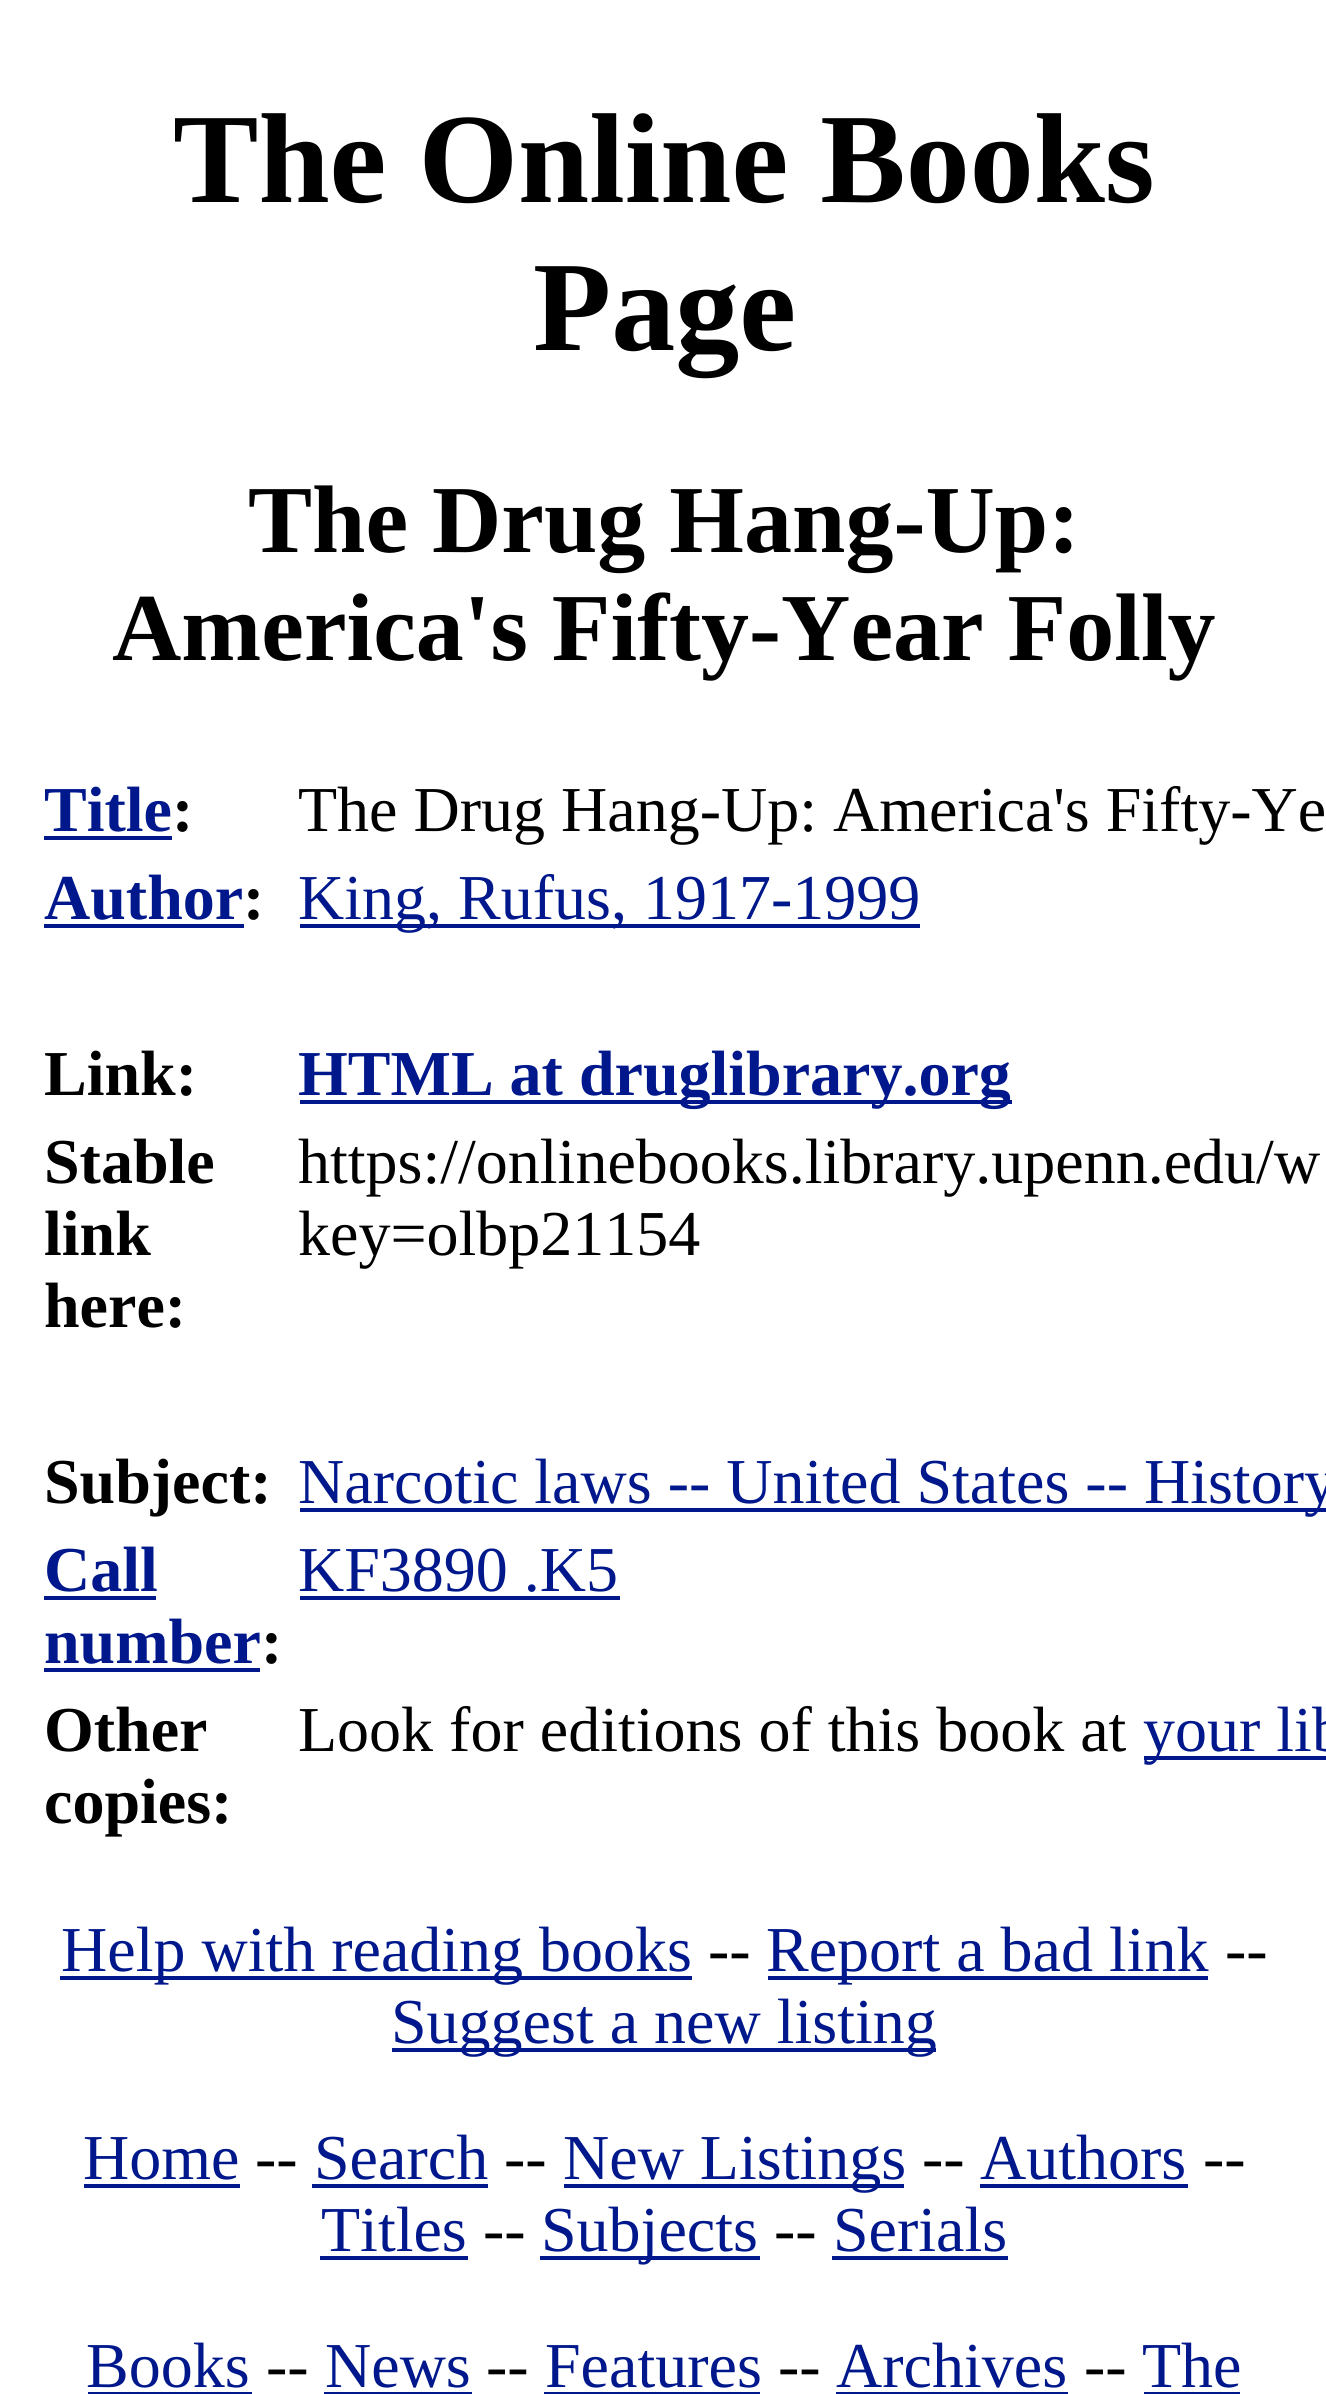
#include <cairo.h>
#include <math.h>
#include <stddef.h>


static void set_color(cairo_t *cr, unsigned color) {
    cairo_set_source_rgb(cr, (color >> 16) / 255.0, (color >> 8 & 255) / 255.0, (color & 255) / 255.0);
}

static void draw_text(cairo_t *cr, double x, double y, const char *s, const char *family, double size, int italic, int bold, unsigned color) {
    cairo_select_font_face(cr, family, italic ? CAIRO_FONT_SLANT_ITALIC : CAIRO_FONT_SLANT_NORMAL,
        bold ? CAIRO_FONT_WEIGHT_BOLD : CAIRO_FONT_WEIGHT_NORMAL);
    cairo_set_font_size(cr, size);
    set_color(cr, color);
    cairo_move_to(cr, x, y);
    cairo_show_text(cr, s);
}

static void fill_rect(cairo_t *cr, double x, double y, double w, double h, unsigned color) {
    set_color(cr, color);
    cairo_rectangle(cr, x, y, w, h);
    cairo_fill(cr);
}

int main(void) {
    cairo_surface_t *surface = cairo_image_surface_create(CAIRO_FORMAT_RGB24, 1326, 2394);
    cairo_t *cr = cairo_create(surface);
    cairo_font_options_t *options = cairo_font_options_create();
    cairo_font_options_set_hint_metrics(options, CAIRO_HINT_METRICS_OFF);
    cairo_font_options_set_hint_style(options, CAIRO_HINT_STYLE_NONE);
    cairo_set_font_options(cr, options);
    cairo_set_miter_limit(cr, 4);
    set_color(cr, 0xFFFFFF);
    cairo_paint(cr);
    draw_text(cr, 173, 202, "The Online Books", "Liberation Serif", 128, 0, 1, 0x000000);
    draw_text(cr, 533, 350, "Page", "Liberation Serif", 128, 0, 1, 0x000000);
    draw_text(cr, 248, 552, "The Drug Hang-Up:", "Liberation Serif", 96, 0, 1, 0x000000);
    draw_text(cr, 112, 660, "America's Fifty-Year Folly", "Liberation Serif", 96, 0, 1, 0x000000);
    draw_text(cr, 44, 831, "Title", "Liberation Serif", 64, 0, 1, 0x00188C);
    draw_text(cr, 172, 831, ":", "Liberation Serif", 64, 0, 1, 0x000000);
    fill_rect(cr, 44, 836, 128, 4, 0x00188C);
    draw_text(cr, 298, 831, "The Drug Hang-Up: America's Fifty-Ye", "Liberation Serif", 64, 0, 0, 0x000000);
    draw_text(cr, 44, 919, "Author", "Liberation Serif", 64, 0, 1, 0x00188C);
    draw_text(cr, 243, 919, ":", "Liberation Serif", 64, 0, 1, 0x000000);
    fill_rect(cr, 44, 924, 200, 4, 0x00188C);
    fill_rect(cr, 300, 924, 620, 4, 0x00188C);
    draw_text(cr, 298, 919, "King, Rufus, 1917-1999", "Liberation Serif", 64, 0, 0, 0x00188C);
    draw_text(cr, 44, 1095, "Link:", "Liberation Serif", 64, 0, 1, 0x000000);
    fill_rect(cr, 300, 1100, 712, 4, 0x00188C);
    draw_text(cr, 298, 1095, "HTML at druglibrary.org", "Liberation Serif", 64, 0, 1, 0x00188C);
    draw_text(cr, 44, 1183, "Stable", "Liberation Serif", 64, 0, 1, 0x000000);
    draw_text(cr, 44, 1255, "link", "Liberation Serif", 64, 0, 1, 0x000000);
    draw_text(cr, 44, 1327, "here:", "Liberation Serif", 64, 0, 1, 0x000000);
    draw_text(cr, 298, 1183, "https://onlinebooks.library.upenn.edu/w", "Liberation Serif", 64, 0, 0, 0x000000);
    draw_text(cr, 298, 1255, "key=olbp21154", "Liberation Serif", 64, 0, 0, 0x000000);
    draw_text(cr, 44, 1503, "Subject:", "Liberation Serif", 64, 0, 1, 0x000000);
    fill_rect(cr, 300, 1508, 1026, 4, 0x00188C);
    draw_text(cr, 298, 1503, "Narcotic laws -- United States -- History", "Liberation Serif", 64, 0, 0, 0x00188C);
    draw_text(cr, 44, 1591, "Call", "Liberation Serif", 64, 0, 1, 0x00188C);
    fill_rect(cr, 44, 1596, 112, 4, 0x00188C);
    draw_text(cr, 44, 1663, "number", "Liberation Serif", 64, 0, 1, 0x00188C);
    draw_text(cr, 261, 1663, ":", "Liberation Serif", 64, 0, 1, 0x000000);
    fill_rect(cr, 44, 1668, 216, 4, 0x00188C);
    draw_text(cr, 298, 1591, "KF3890 .K5", "Liberation Serif", 64, 0, 0, 0x00188C);
    fill_rect(cr, 300, 1596, 320, 4, 0x00188C);
    draw_text(cr, 44, 1751, "Other", "Liberation Serif", 64, 0, 1, 0x000000);
    draw_text(cr, 44, 1823, "copies:", "Liberation Serif", 64, 0, 1, 0x000000);
    draw_text(cr, 298, 1751, "Look for editions of this book at", "Liberation Serif", 64, 0, 0, 0x000000);
    fill_rect(cr, 1144, 1756, 182, 4, 0x00188C);
    draw_text(cr, 1143, 1751, "your lib", "Liberation Serif", 64, 0, 0, 0x00188C);
    fill_rect(cr, 60, 1976, 632, 4, 0x00188C);
    draw_text(cr, 61, 1971, "Help with reading books", "Liberation Serif", 64, 0, 0, 0x00188C);
    draw_text(cr, 708, 1971, "--", "Liberation Serif", 64, 0, 0, 0x000000);
    fill_rect(cr, 768, 1976, 440, 4, 0x00188C);
    draw_text(cr, 766, 1971, "Report a bad link", "Liberation Serif", 64, 0, 0, 0x00188C);
    draw_text(cr, 1225, 1971, "--", "Liberation Serif", 64, 0, 0, 0x000000);
    fill_rect(cr, 392, 2048, 544, 4, 0x00188C);
    draw_text(cr, 391, 2043, "Suggest a new listing", "Liberation Serif", 64, 0, 0, 0x00188C);
    draw_text(cr, 83, 2179, "Home", "Liberation Serif", 64, 0, 0, 0x00188C);
    fill_rect(cr, 84, 2184, 156, 4, 0x00188C);
    draw_text(cr, 255, 2179, "--", "Liberation Serif", 64, 0, 0, 0x000000);
    draw_text(cr, 314, 2179, "Search", "Liberation Serif", 64, 0, 0, 0x00188C);
    fill_rect(cr, 312, 2184, 176, 4, 0x00188C);
    draw_text(cr, 504, 2179, "--", "Liberation Serif", 64, 0, 0, 0x000000);
    fill_rect(cr, 564, 2184, 340, 4, 0x00188C);
    draw_text(cr, 563, 2179, "New Listings", "Liberation Serif", 64, 0, 0, 0x00188C);
    draw_text(cr, 922, 2179, "--", "Liberation Serif", 64, 0, 0, 0x000000);
    draw_text(cr, 980, 2179, "Authors", "Liberation Serif", 64, 0, 0, 0x00188C);
    fill_rect(cr, 980, 2184, 208, 4, 0x00188C);
    draw_text(cr, 1203, 2179, "--", "Liberation Serif", 64, 0, 0, 0x000000);
    draw_text(cr, 321, 2251, "Titles", "Liberation Serif", 64, 0, 0, 0x00188C);
    fill_rect(cr, 320, 2256, 148, 4, 0x00188C);
    draw_text(cr, 483, 2251, "--", "Liberation Serif", 64, 0, 0, 0x000000);
    fill_rect(cr, 540, 2256, 220, 4, 0x00188C);
    draw_text(cr, 541, 2251, "Subjects", "Liberation Serif", 64, 0, 0, 0x00188C);
    draw_text(cr, 774, 2251, "--", "Liberation Serif", 64, 0, 0, 0x000000);
    draw_text(cr, 833, 2251, "Serials", "Liberation Serif", 64, 0, 0, 0x00188C);
    fill_rect(cr, 832, 2256, 176, 4, 0x00188C);
    draw_text(cr, 86, 2387, "Books", "Liberation Serif", 64, 0, 0, 0x00188C);
    fill_rect(cr, 88, 2392, 164, 2, 0x00188C);
    draw_text(cr, 266, 2387, "--", "Liberation Serif", 64, 0, 0, 0x000000);
    draw_text(cr, 325, 2387, "News", "Liberation Serif", 64, 0, 0, 0x00188C);
    fill_rect(cr, 324, 2392, 148, 2, 0x00188C);
    draw_text(cr, 486, 2387, "--", "Liberation Serif", 64, 0, 0, 0x000000);
    draw_text(cr, 545, 2387, "Features", "Liberation Serif", 64, 0, 0, 0x00188C);
    fill_rect(cr, 544, 2392, 216, 2, 0x00188C);
    draw_text(cr, 778, 2387, "--", "Liberation Serif", 64, 0, 0, 0x000000);
    draw_text(cr, 836, 2387, "Archives", "Liberation Serif", 64, 0, 0, 0x00188C);
    fill_rect(cr, 836, 2392, 232, 2, 0x00188C);
    draw_text(cr, 1084, 2387, "--", "Liberation Serif", 64, 0, 0, 0x000000);
    draw_text(cr, 1142, 2387, "The", "Liberation Serif", 64, 0, 0, 0x00188C);
    fill_rect(cr, 1144, 2392, 96, 2, 0x00188C);
    cairo_surface_write_to_png(surface, "output.png");
    cairo_font_options_destroy(options);
    cairo_destroy(cr);
    cairo_surface_destroy(surface);
    return 0;
}
